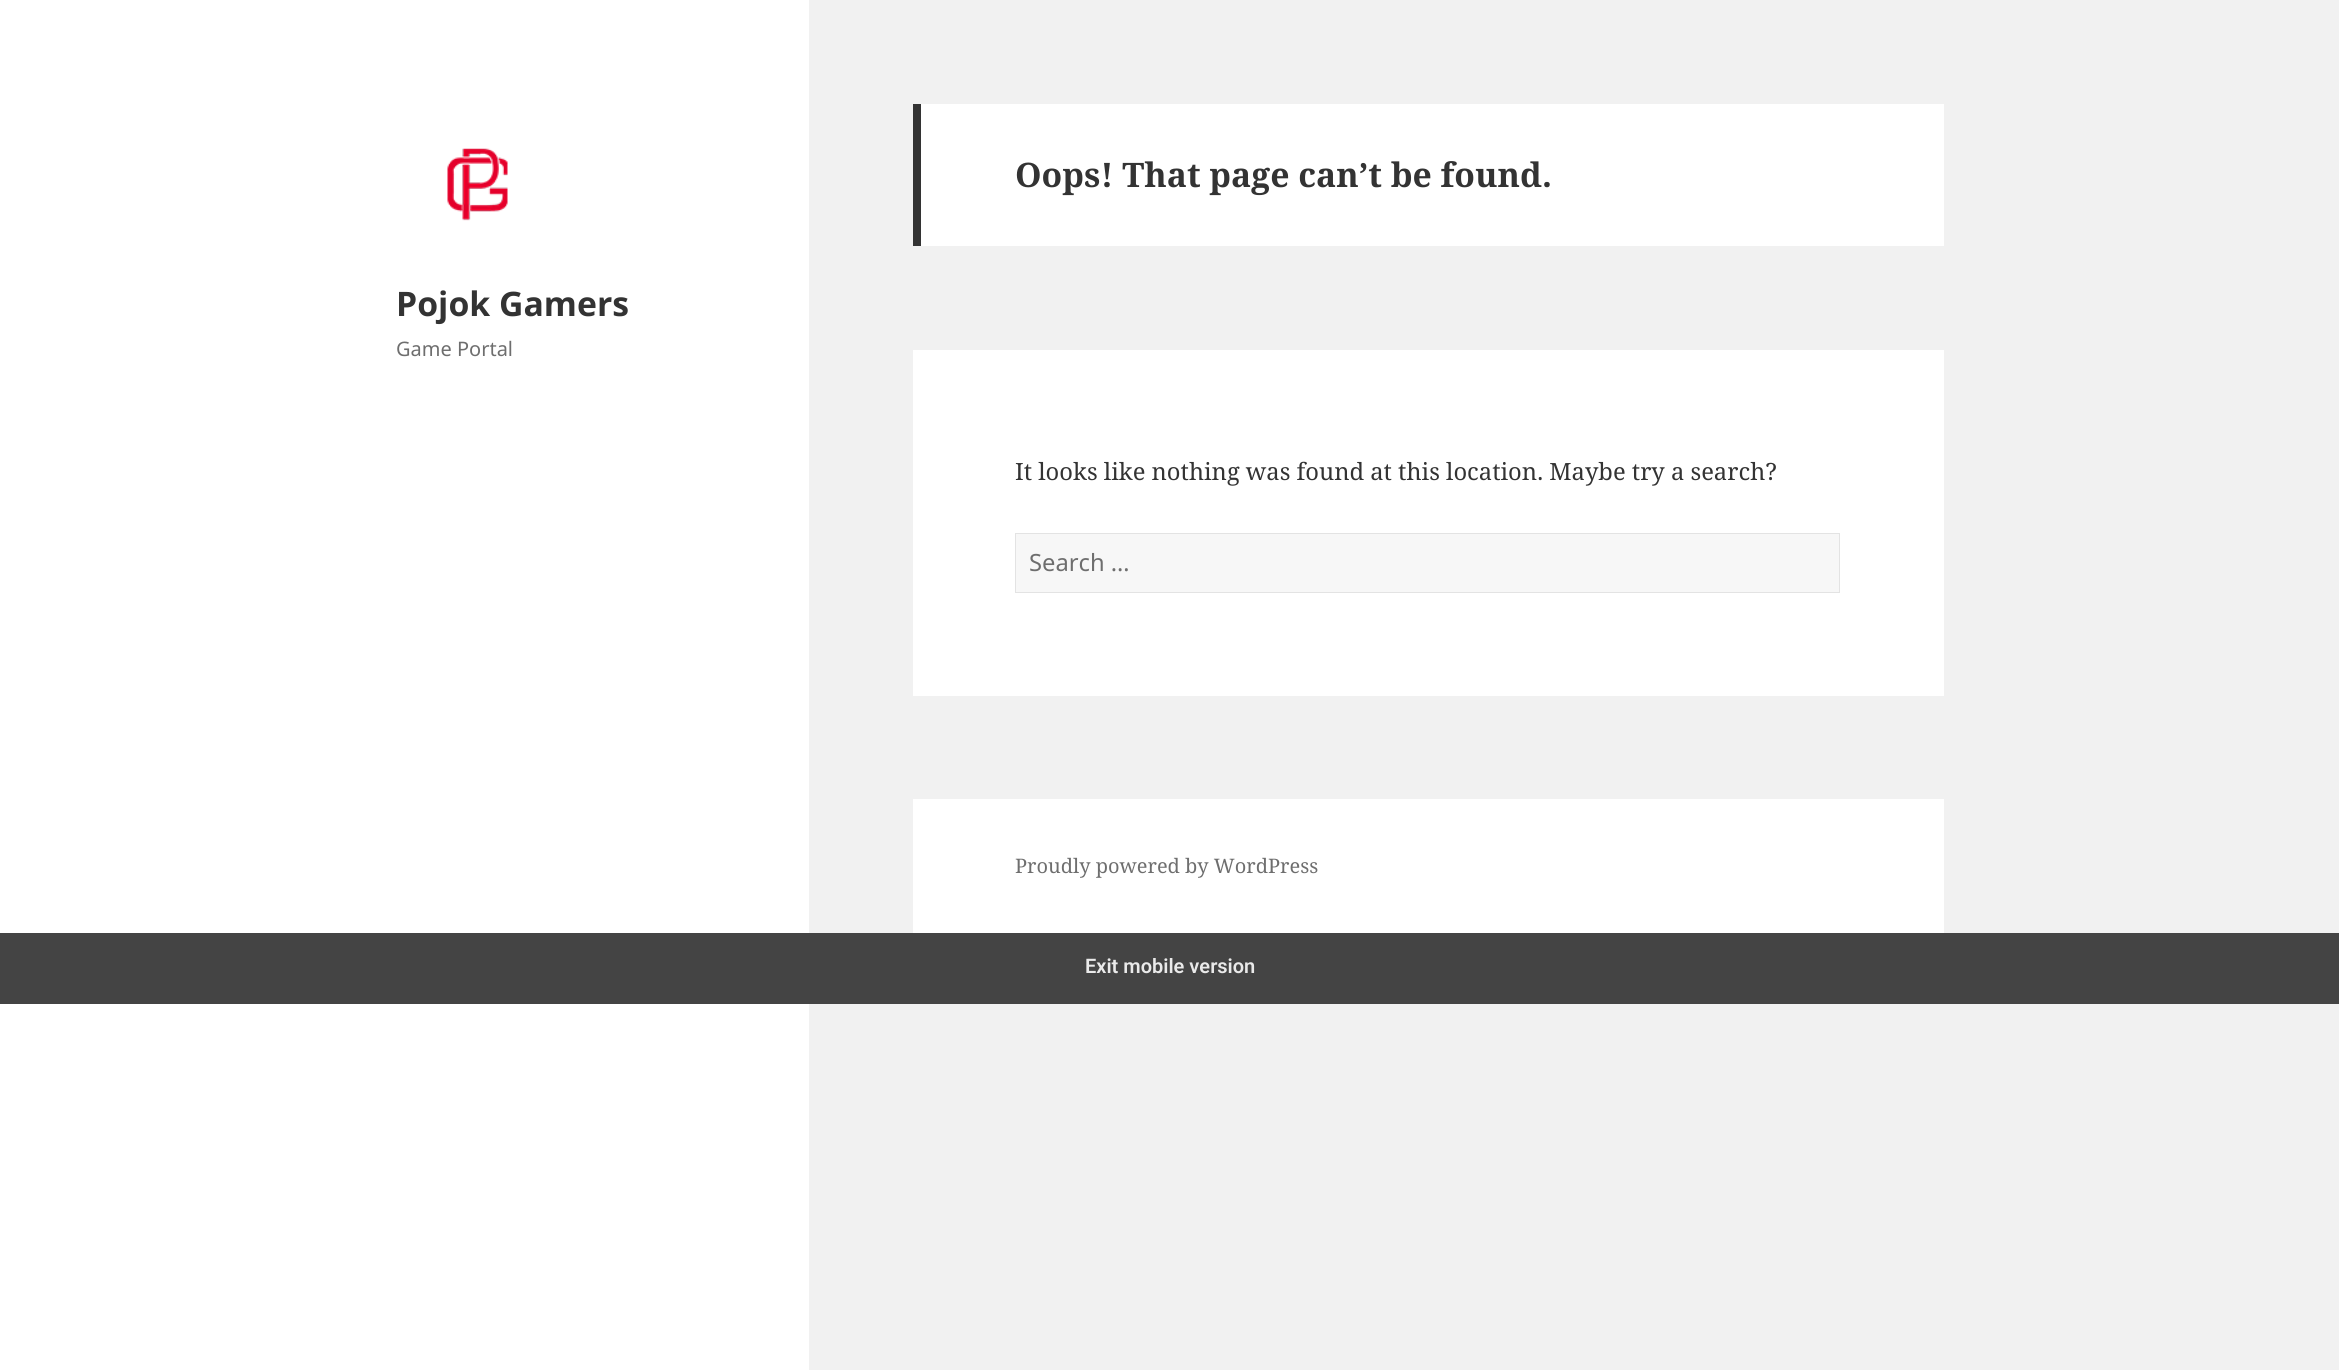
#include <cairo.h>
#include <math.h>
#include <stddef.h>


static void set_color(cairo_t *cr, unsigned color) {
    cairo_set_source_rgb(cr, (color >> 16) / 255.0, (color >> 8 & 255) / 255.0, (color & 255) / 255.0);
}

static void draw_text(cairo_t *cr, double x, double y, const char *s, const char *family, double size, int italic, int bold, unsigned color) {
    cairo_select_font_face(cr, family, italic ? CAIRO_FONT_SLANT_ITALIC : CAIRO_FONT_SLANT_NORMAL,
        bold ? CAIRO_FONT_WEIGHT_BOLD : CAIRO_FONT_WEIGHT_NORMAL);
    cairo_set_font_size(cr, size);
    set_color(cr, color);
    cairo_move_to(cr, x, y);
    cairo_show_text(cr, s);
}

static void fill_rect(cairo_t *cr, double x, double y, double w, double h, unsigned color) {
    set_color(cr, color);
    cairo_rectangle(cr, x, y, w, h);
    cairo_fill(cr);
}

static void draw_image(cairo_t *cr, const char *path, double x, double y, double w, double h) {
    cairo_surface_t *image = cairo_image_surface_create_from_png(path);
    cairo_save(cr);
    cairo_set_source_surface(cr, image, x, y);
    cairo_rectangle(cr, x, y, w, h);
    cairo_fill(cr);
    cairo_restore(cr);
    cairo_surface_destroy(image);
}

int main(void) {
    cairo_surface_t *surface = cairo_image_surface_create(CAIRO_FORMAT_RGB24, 2339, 1370);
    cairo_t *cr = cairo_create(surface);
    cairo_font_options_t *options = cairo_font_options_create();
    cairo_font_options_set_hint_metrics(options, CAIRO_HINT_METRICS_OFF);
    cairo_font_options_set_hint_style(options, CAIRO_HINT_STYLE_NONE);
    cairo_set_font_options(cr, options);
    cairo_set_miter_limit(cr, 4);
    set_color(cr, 0xF1F1F1);
    cairo_paint(cr);
    fill_rect(cr, 0, 0, 809, 1370, 0xFFFFFF);
    draw_image(cr, "assets/img1.png", 447, 148, 61, 73);
    draw_text(cr, 396, 316, "Pojok Gamers", "Noto Sans", 33.75, 0, 1, 0x333333);
    draw_text(cr, 396, 356, "Game Portal", "Noto Sans", 20, 0, 0, 0x6E6E6E);
    fill_rect(cr, 921, 104, 1023, 142, 0xFFFFFF);
    fill_rect(cr, 913, 104, 8, 142, 0x333333);
    draw_text(cr, 1015, 187, "Oops! That page can’t be found.", "Noto Serif", 33.75, 0, 1, 0x333333);
    fill_rect(cr, 913, 350, 1031, 346, 0xFFFFFF);
    draw_text(cr, 1015, 480, "It looks like nothing was found at this location. Maybe try a search?", "Noto Serif", 23.75, 0, 0, 0x333333);
    set_color(cr, 0xF7F7F7);
    cairo_rectangle(cr, 1015.5, 533.5, 824, 59);
    cairo_fill_preserve(cr);
    set_color(cr, 0xE3E3E3);
    cairo_set_line_width(cr, 1);
    cairo_stroke(cr);
    draw_text(cr, 1029, 571, "Search …", "Noto Sans", 23.75, 0, 0, 0x6E6E6E);
    fill_rect(cr, 913, 799, 1031, 134, 0xFFFFFF);
    draw_text(cr, 1015, 873, "Proudly powered by WordPress", "Noto Serif", 20, 0, 0, 0x6E6E6E);
    fill_rect(cr, 0, 933, 2339, 71, 0x444444);
    draw_text(cr, 1085, 973, "Exit mobile version", "Roboto SemiBold", 20, 0, 0, 0xEAEAEA);
    cairo_surface_write_to_png(surface, "output.png");
    cairo_font_options_destroy(options);
    cairo_destroy(cr);
    cairo_surface_destroy(surface);
    return 0;
}
